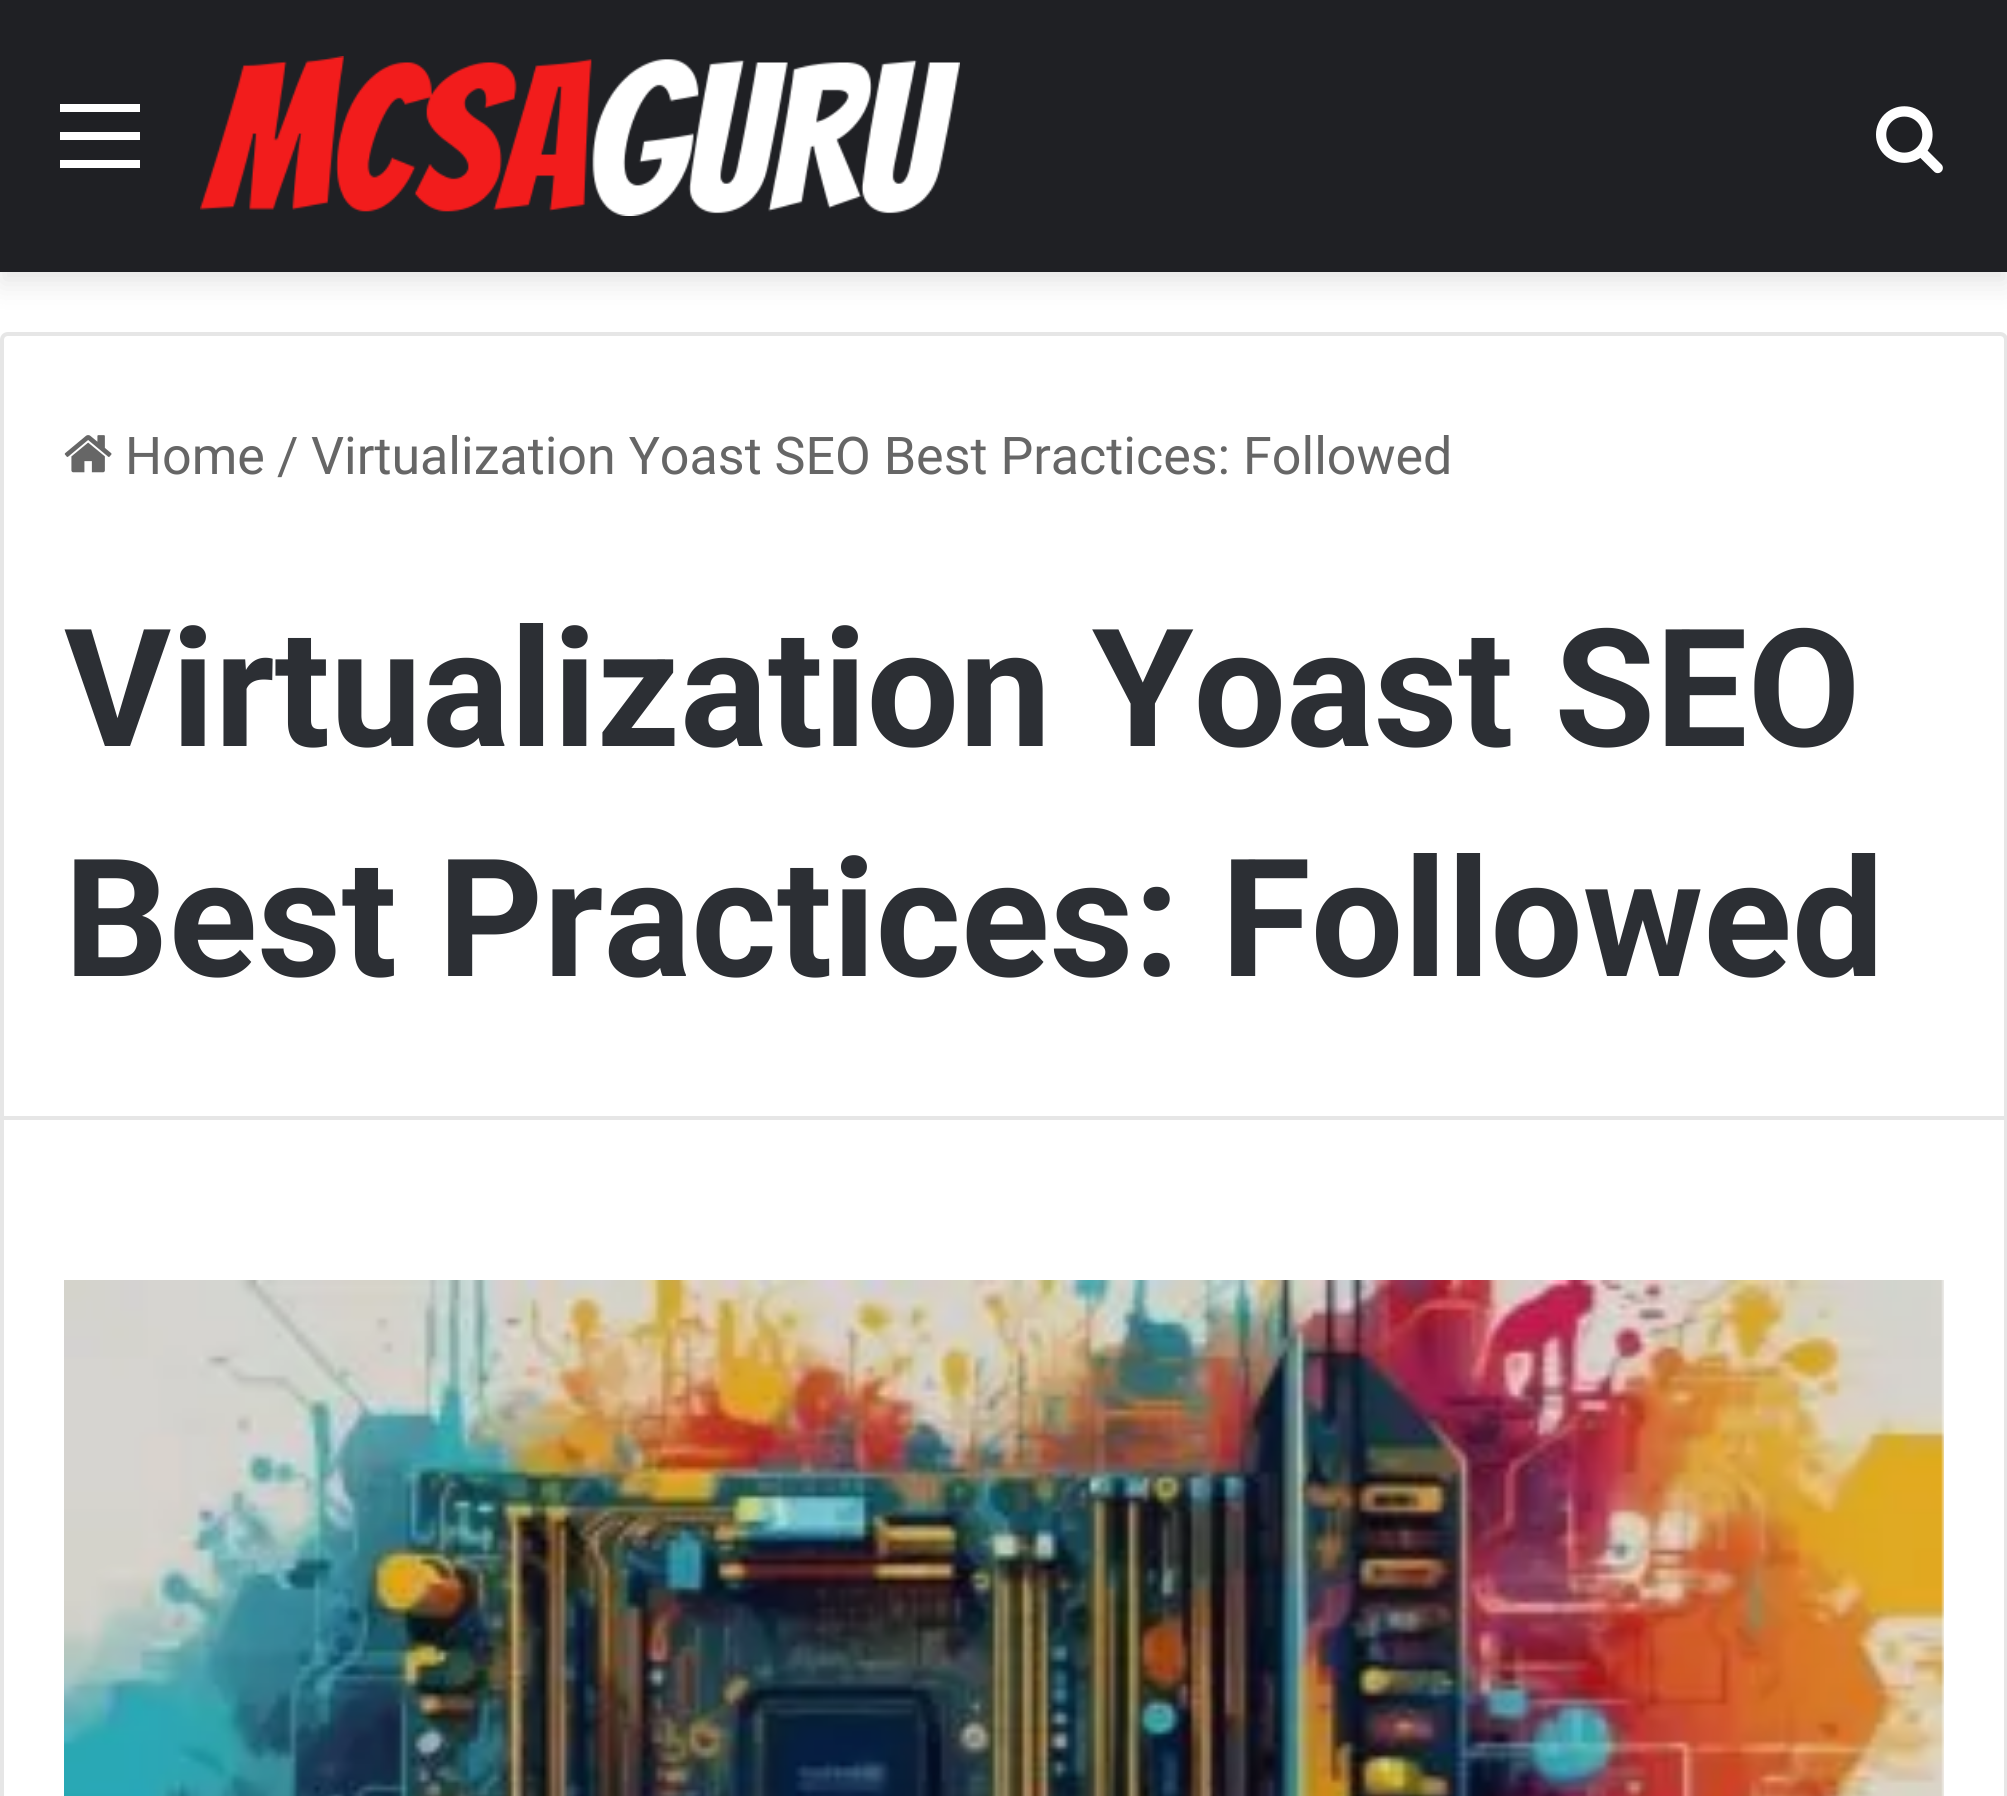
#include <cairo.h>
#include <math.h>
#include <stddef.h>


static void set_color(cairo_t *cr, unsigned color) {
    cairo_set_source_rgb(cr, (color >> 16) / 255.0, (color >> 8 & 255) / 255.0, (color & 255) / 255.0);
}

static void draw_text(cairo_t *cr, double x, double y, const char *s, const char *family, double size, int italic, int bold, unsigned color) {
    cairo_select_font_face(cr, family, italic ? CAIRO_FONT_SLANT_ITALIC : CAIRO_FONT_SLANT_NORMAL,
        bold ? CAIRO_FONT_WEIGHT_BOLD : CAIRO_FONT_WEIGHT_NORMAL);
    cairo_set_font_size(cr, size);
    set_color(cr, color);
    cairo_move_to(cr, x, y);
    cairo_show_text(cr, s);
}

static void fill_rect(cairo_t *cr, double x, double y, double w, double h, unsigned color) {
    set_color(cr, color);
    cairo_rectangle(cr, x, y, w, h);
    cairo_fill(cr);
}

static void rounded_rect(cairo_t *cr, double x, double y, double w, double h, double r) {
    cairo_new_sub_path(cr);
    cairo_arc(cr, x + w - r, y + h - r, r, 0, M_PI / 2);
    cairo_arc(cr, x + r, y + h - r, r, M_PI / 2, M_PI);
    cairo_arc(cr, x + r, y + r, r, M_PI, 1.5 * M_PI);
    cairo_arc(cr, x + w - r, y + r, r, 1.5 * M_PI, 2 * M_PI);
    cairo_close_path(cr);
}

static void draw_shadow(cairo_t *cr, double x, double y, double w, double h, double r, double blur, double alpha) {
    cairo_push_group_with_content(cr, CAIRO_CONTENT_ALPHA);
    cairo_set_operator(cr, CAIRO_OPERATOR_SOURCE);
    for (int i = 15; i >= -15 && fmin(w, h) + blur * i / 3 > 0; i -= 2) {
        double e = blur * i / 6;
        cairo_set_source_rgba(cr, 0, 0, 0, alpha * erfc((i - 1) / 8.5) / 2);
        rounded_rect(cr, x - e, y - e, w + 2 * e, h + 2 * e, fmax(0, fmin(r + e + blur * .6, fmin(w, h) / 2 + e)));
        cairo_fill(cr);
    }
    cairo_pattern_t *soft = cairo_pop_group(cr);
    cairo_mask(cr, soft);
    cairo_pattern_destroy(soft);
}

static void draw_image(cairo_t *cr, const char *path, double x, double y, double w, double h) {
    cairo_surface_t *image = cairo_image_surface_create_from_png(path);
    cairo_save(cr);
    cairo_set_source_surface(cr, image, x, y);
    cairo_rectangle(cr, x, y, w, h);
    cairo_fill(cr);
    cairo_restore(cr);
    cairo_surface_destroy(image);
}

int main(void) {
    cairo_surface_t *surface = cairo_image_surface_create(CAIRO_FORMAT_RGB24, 2007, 1796);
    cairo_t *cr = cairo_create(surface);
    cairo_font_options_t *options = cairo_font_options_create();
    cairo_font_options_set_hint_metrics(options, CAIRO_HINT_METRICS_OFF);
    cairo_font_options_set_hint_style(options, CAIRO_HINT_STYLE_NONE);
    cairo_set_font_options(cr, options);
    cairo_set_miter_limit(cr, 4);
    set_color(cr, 0xFFFFFF);
    cairo_paint(cr);
    set_color(cr, 0x000000);
    draw_shadow(cr, 0, 12, 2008, 272, 0, 14, 0.1);
    fill_rect(cr, 0, 0, 2007, 272, 0x1F2024);
    fill_rect(cr, 60, 132, 80, 8, 0xFFFFFF);
    fill_rect(cr, 60, 104, 80, 8, 0xFFFFFF);
    fill_rect(cr, 60, 160, 80, 8, 0xFFFFFF);
    draw_image(cr, "assets/img1.png", 200, 56, 760, 160);
    draw_image(cr, "assets/img2.png", 1876, 106, 67, 68);
    cairo_new_path(cr);
    cairo_move_to(cr, 8, 334);
    cairo_line_to(cr, 2000, 334);
    cairo_curve_to(cr, 2003.5, 334, 2006, 336.5, 2006, 340);
    cairo_line_to(cr, 2006, 1118);
    cairo_line_to(cr, 2, 1118);
    cairo_line_to(cr, 2, 340);
    cairo_curve_to(cr, 2, 336.5, 4.5, 334, 8, 334);
    cairo_close_path(cr);
    set_color(cr, 0xE6E6E6);
    cairo_set_line_width(cr, 4);
    cairo_stroke(cr);
    draw_image(cr, "assets/img3.png", 64, 435, 48, 38);
    draw_text(cr, 125, 474, "Home", "Roboto", 52, 0, 0, 0x666666);
    draw_text(cr, 277, 474, "/", "Roboto", 52, 0, 0, 0x666666);
    draw_text(cr, 311, 474, "Virtualization Yoast SEO Best Practices: Followed", "Roboto", 52, 0, 0, 0x666666);
    draw_text(cr, 64, 746, "Virtualization Yoast SEO", "Roboto", 164, 0, 1, 0x2C2F34);
    draw_text(cr, 64, 976, "Best Practices: Followed", "Roboto", 164, 0, 1, 0x2C2F34);
    fill_rect(cr, 2004, 1120, 3, 676, 0xE6E6E6);
    fill_rect(cr, 0, 1120, 4, 676, 0xE6E6E6);
    draw_image(cr, "assets/img4.png", 64, 1280, 1880, 516);
    cairo_surface_write_to_png(surface, "output.png");
    cairo_font_options_destroy(options);
    cairo_destroy(cr);
    cairo_surface_destroy(surface);
    return 0;
}
